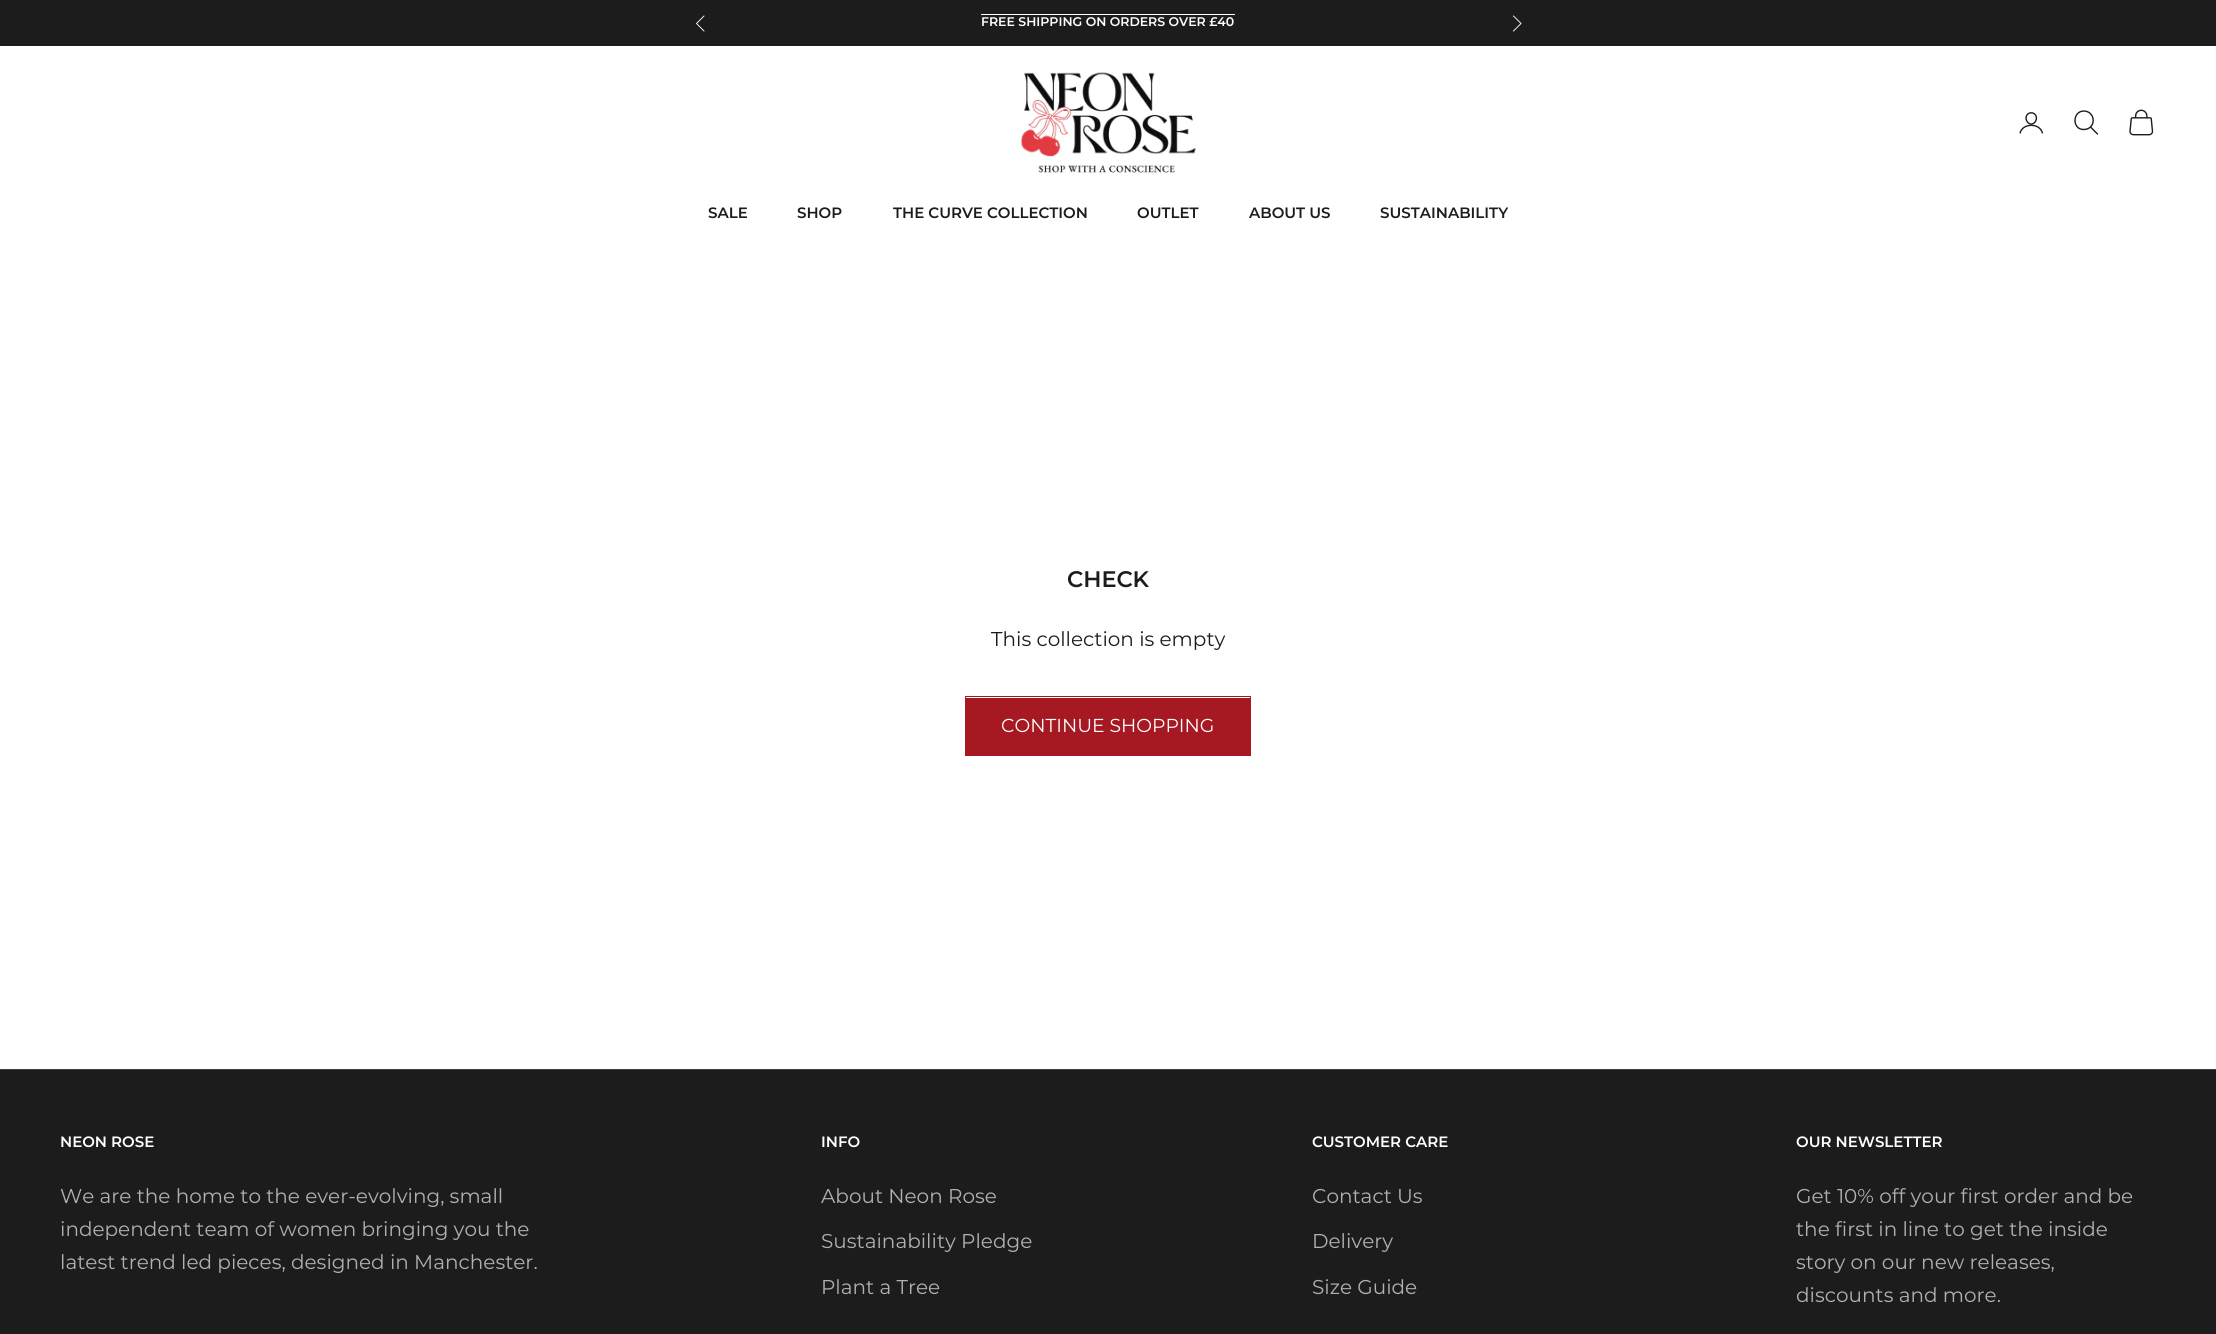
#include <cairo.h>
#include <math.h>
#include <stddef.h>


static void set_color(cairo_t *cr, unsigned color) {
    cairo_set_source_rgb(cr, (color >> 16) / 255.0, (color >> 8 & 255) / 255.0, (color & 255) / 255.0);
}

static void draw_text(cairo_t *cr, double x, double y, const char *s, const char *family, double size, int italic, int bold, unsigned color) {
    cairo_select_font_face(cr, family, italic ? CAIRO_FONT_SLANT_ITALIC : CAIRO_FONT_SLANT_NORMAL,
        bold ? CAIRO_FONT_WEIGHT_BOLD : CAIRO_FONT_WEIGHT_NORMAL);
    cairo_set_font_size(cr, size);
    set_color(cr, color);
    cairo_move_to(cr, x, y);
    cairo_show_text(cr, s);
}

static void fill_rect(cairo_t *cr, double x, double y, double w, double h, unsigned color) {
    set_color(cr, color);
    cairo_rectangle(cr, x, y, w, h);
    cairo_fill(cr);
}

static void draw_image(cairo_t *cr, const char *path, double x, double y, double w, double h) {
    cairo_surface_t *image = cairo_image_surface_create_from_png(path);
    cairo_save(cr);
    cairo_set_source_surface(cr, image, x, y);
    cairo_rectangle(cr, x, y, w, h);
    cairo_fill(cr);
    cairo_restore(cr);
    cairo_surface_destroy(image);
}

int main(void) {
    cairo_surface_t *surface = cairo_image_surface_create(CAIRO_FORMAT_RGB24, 2216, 1334);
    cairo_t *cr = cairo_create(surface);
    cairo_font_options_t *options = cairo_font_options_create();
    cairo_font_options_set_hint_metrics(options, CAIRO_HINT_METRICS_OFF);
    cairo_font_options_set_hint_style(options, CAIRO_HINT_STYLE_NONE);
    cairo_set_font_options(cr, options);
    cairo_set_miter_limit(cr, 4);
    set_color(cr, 0xFFFFFF);
    cairo_paint(cr);
    fill_rect(cr, 0, 0, 2216, 46, 0x1C1C1C);
    cairo_new_path(cr);
    cairo_move_to(cr, 704, 16);
    cairo_line_to(cr, 696.5, 23.5);
    cairo_line_to(cr, 704, 31);
    set_color(cr, 0xFFFFFF);
    cairo_set_line_width(cr, 0.9);
    cairo_set_line_cap(cr, CAIRO_LINE_CAP_SQUARE);
    cairo_stroke(cr);
    draw_text(cr, 981, 26, "FREE SHIPPING ON ORDERS OVER £40", "Montserrat SemiBold", 12.5, 0, 0, 0xFFFFFF);
    fill_rect(cr, 981, 14, 254, 1, 0xFFFFFF);
    cairo_new_path(cr);
    cairo_move_to(cr, 1513.5, 31);
    cairo_line_to(cr, 1521, 23.5);
    cairo_line_to(cr, 1513.5, 16);
    cairo_stroke(cr);
    draw_image(cr, "assets/img1.png", 1016, 70, 180, 103);
    draw_image(cr, "assets/img2.png", 2019, 112, 25, 22);
    cairo_new_path(cr);
    cairo_move_to(cr, 2084, 111);
    cairo_curve_to(cr, 2072, 111, 2072, 130, 2084, 129.5);
    cairo_curve_to(cr, 2096.5, 129, 2096, 111.5, 2084, 111);
    cairo_close_path(cr);
    set_color(cr, 0x1C1C1C);
    cairo_set_line_width(cr, 1.4);
    cairo_set_line_cap(cr, CAIRO_LINE_CAP_BUTT);
    cairo_stroke(cr);
    cairo_new_path(cr);
    cairo_move_to(cr, 2091, 127.5);
    cairo_line_to(cr, 2097.5, 134);
    cairo_set_line_cap(cr, CAIRO_LINE_CAP_ROUND);
    cairo_stroke(cr);
    draw_image(cr, "assets/img3.png", 2129, 109, 25, 27);
    draw_text(cr, 708, 218, "SALE", "Montserrat SemiBold", 15, 0, 0, 0x1C1C1C);
    draw_text(cr, 797, 218, "SHOP", "Montserrat SemiBold", 15, 0, 0, 0x1C1C1C);
    draw_text(cr, 893, 218, "THE CURVE COLLECTION", "Montserrat SemiBold", 15, 0, 0, 0x1C1C1C);
    draw_text(cr, 1137, 218, "OUTLET", "Montserrat SemiBold", 15, 0, 0, 0x1C1C1C);
    draw_text(cr, 1249, 218, "ABOUT US", "Montserrat SemiBold", 15, 0, 0, 0x1C1C1C);
    draw_text(cr, 1380, 218, "SUSTAINABILITY", "Montserrat SemiBold", 15, 0, 0, 0x1C1C1C);
    draw_text(cr, 1067, 587, "CHECK", "Montserrat SemiBold", 22.5, 0, 0, 0x1C1C1C);
    draw_text(cr, 991, 646, "This collection is empty", "Montserrat", 20, 0, 0, 0x1C1C1C);
    fill_rect(cr, 966, 698, 284, 57, 0xA61822);
    cairo_rectangle(cr, 965.5, 696.5, 285, 59);
    cairo_set_line_width(cr, 1);
    cairo_set_line_cap(cr, CAIRO_LINE_CAP_BUTT);
    cairo_stroke(cr);
    draw_text(cr, 1001, 732, "CONTINUE SHOPPING", "Montserrat", 18.75, 0, 0, 0xFFFFFF);
    fill_rect(cr, 0, 1070, 2216, 264, 0x1C1C1C);
    fill_rect(cr, 0, 1069, 2216, 1, 0x3E3E3E);
    draw_text(cr, 60, 1147, "NEON ROSE", "Montserrat SemiBold", 15, 0, 0, 0xFFFFFF);
    draw_text(cr, 60, 1203, "We are the home to the ever-evolving, small", "Montserrat", 20, 0, 0, 0xB0B0B0);
    draw_text(cr, 60, 1236, "independent team of women bringing you the", "Montserrat", 20, 0, 0, 0xB0B0B0);
    draw_text(cr, 60, 1269, "latest trend led pieces, designed in Manchester.", "Montserrat", 20, 0, 0, 0xB0B0B0);
    draw_text(cr, 821, 1147, "INFO", "Montserrat SemiBold", 15, 0, 0, 0xFFFFFF);
    draw_text(cr, 821, 1203, "About Neon Rose", "Montserrat", 20, 0, 0, 0xB0B0B0);
    draw_text(cr, 821, 1248, "Sustainability Pledge", "Montserrat", 20, 0, 0, 0xB0B0B0);
    draw_text(cr, 821, 1294, "Plant a Tree", "Montserrat", 20, 0, 0, 0xB0B0B0);
    draw_text(cr, 1312, 1147, "CUSTOMER CARE", "Montserrat SemiBold", 15, 0, 0, 0xFFFFFF);
    draw_text(cr, 1312, 1203, "Contact Us", "Montserrat", 20, 0, 0, 0xB0B0B0);
    draw_text(cr, 1312, 1248, "Delivery", "Montserrat", 20, 0, 0, 0xB0B0B0);
    draw_text(cr, 1312, 1294, "Size Guide", "Montserrat", 20, 0, 0, 0xB0B0B0);
    draw_text(cr, 1796, 1147, "OUR NEWSLETTER", "Montserrat SemiBold", 15, 0, 0, 0xFFFFFF);
    draw_text(cr, 1796, 1203, "Get 10% off your first order and be", "Montserrat", 20, 0, 0, 0xB0B0B0);
    draw_text(cr, 1796, 1236, "the first in line to get the inside", "Montserrat", 20, 0, 0, 0xB0B0B0);
    draw_text(cr, 1796, 1269, "story on our new releases,", "Montserrat", 20, 0, 0, 0xB0B0B0);
    draw_text(cr, 1796, 1302, "discounts and more.", "Montserrat", 20, 0, 0, 0xB0B0B0);
    cairo_surface_write_to_png(surface, "output.png");
    cairo_font_options_destroy(options);
    cairo_destroy(cr);
    cairo_surface_destroy(surface);
    return 0;
}
